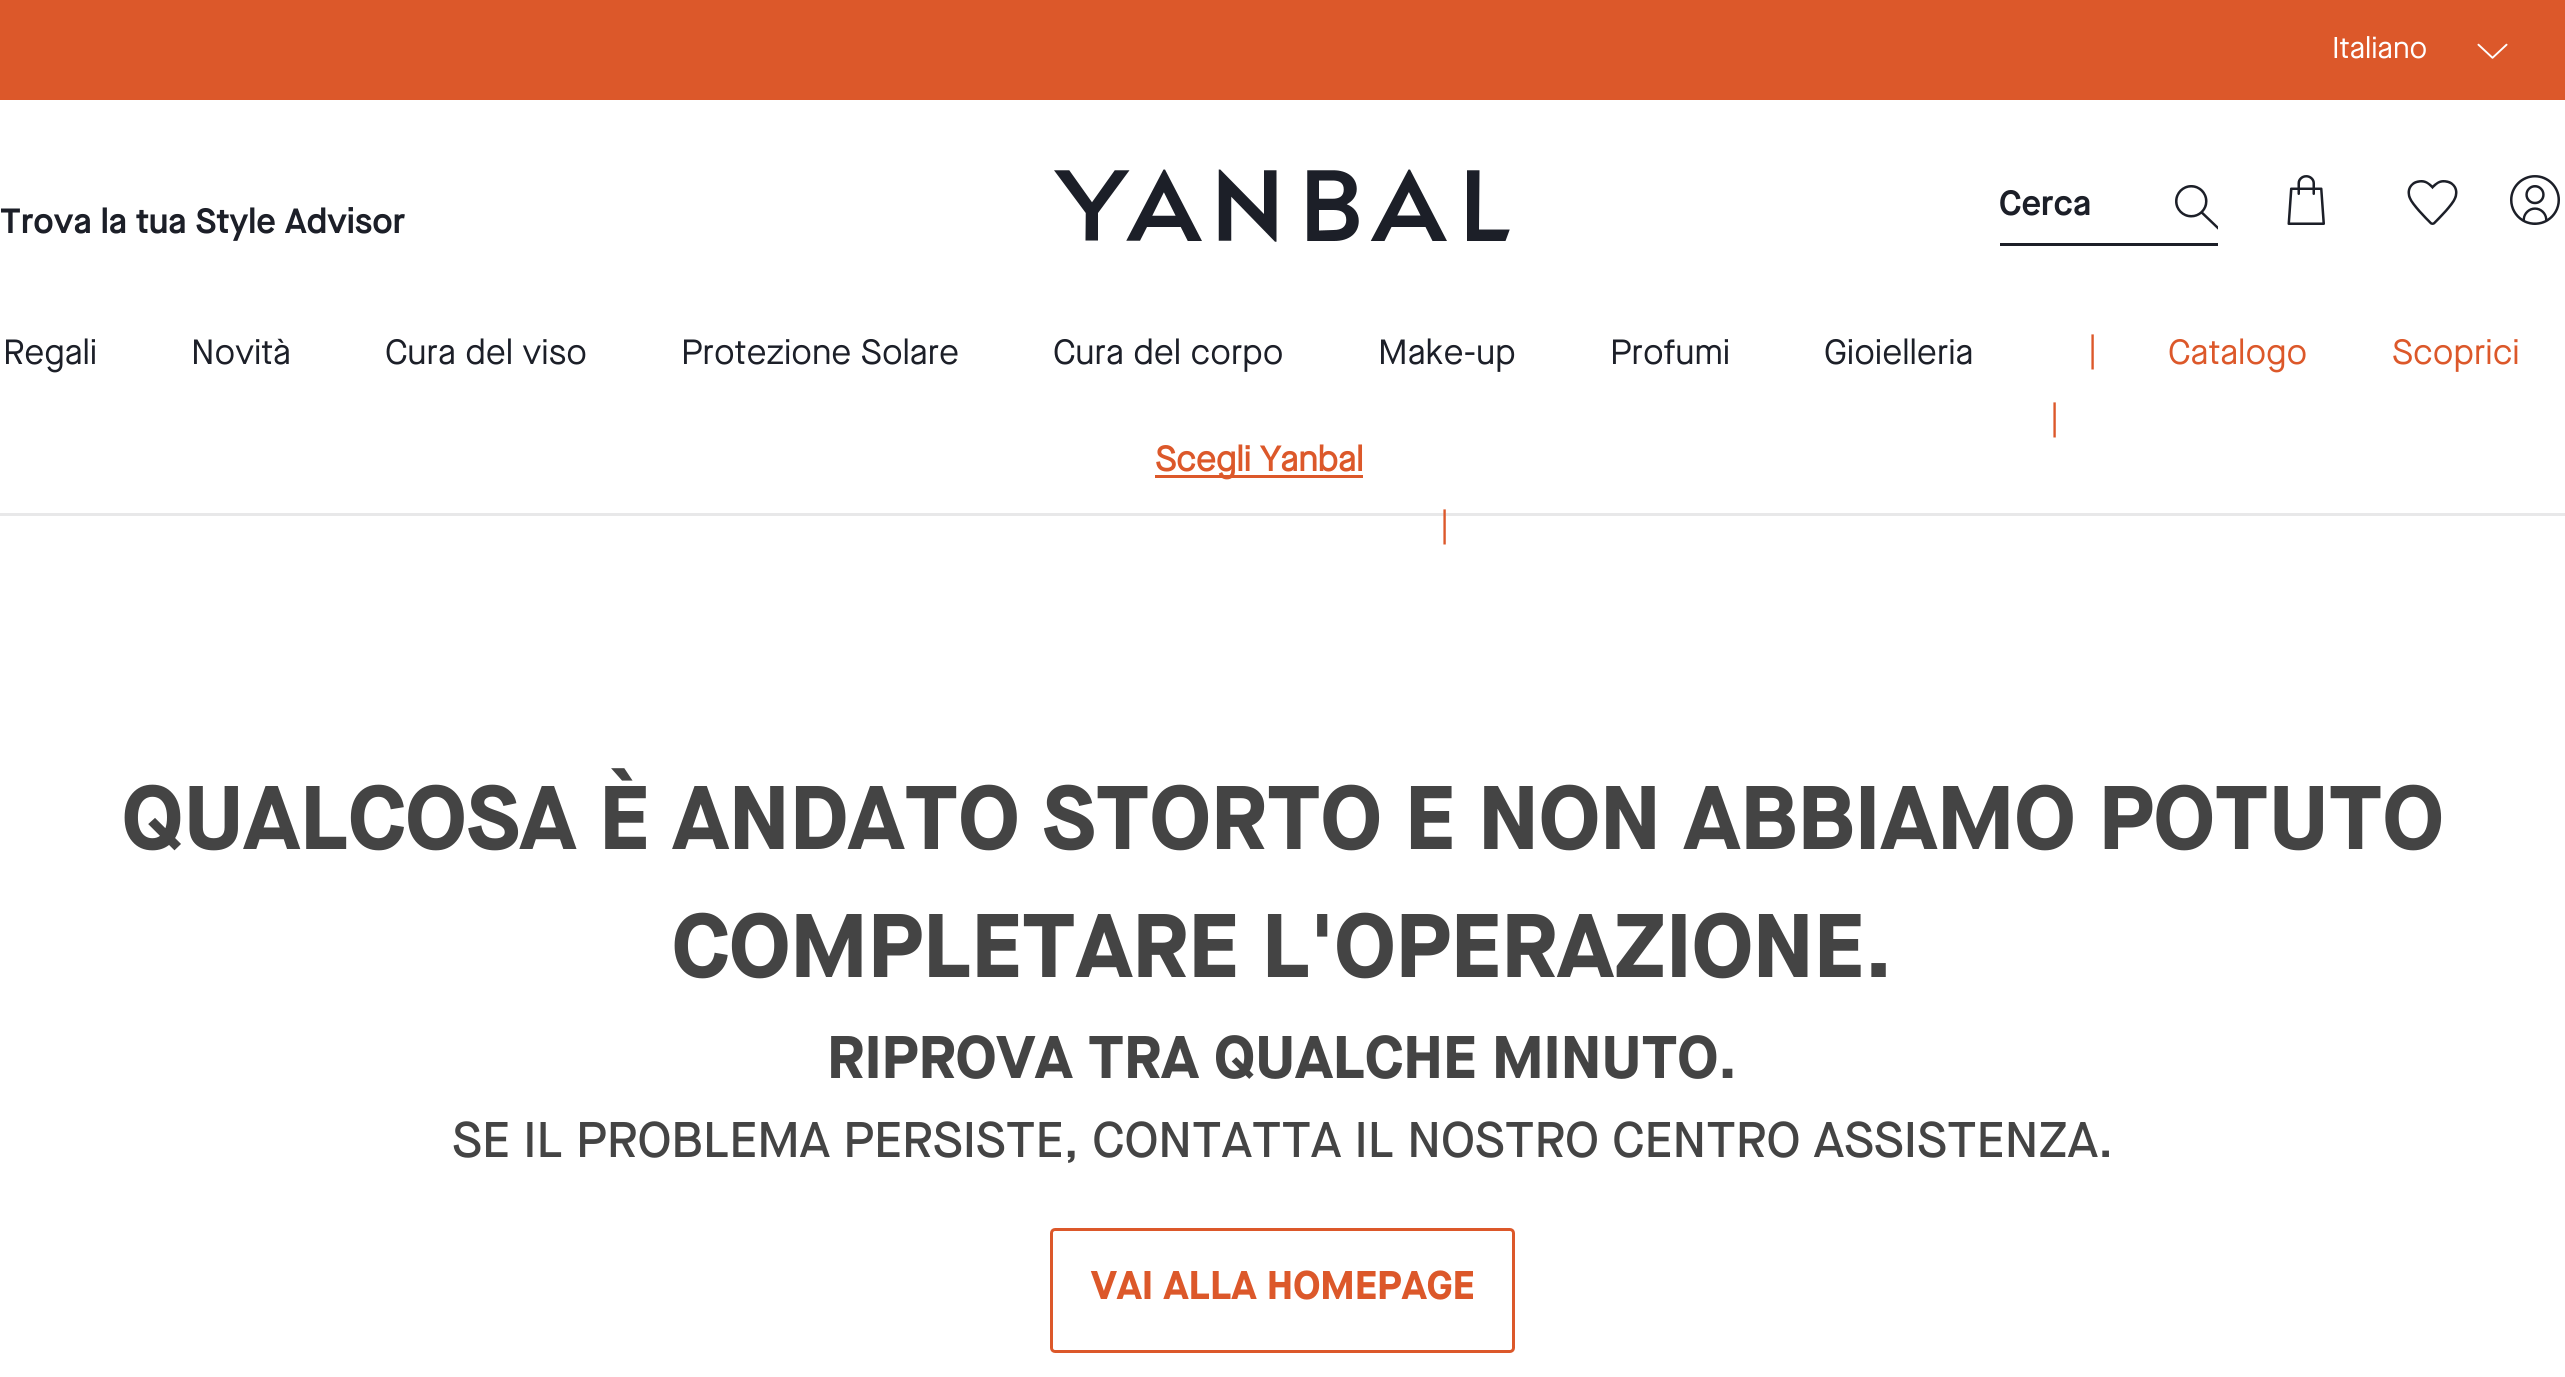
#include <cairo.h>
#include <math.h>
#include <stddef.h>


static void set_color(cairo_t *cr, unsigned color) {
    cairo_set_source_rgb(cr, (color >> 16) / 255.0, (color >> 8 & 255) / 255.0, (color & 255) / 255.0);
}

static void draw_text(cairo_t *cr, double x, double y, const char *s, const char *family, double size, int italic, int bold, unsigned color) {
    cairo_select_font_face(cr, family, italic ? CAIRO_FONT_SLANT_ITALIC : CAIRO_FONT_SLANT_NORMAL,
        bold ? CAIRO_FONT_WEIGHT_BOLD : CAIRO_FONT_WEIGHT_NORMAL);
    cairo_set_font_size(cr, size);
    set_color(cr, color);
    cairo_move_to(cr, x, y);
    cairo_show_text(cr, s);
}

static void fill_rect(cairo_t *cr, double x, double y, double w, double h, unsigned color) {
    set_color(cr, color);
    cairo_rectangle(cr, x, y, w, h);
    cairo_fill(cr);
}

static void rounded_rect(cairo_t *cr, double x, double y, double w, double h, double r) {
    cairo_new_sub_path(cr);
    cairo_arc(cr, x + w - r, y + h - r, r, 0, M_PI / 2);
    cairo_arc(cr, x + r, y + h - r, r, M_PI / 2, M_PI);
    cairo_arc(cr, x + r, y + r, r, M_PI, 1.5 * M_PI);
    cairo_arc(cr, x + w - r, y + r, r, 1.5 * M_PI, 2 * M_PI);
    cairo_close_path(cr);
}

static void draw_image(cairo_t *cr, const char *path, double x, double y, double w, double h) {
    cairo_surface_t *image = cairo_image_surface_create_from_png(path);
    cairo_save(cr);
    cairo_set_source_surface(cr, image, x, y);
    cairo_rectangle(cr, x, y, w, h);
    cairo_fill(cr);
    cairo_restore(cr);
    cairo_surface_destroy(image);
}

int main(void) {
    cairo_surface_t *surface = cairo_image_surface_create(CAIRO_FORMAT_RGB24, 2565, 1377);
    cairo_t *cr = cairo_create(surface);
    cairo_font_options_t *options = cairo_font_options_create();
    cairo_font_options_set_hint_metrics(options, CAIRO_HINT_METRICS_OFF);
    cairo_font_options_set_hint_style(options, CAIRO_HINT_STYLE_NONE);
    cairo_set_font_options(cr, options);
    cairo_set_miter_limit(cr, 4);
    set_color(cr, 0xFFFFFF);
    cairo_paint(cr);
    fill_rect(cr, 0, 0, 2565, 100, 0xDC582A);
    draw_text(cr, 2332, 58, "Italiano", "Maison Neue", 30, 0, 0, 0xFFFFFF);
    draw_image(cr, "assets/img1.png", 2477, 43, 31, 16);
    draw_image(cr, "assets/img2.png", 1054, 169, 456, 73);
    fill_rect(cr, 2000, 243, 218, 3, 0x1C1F28);
    draw_text(cr, 1999, 215, "Cerca", "Maison Neue SemiBold", 35, 0, 0, 0x1C1F28);
    draw_image(cr, "assets/img3.png", 2175, 185, 43, 45);
    draw_image(cr, "assets/img4.png", 2287, 175, 38, 50);
    draw_image(cr, "assets/img5.png", 2407, 180, 51, 45);
    draw_image(cr, "assets/img6.png", 2510, 175, 50, 50);
    draw_text(cr, 0, 233, "Trova la tua Style Advisor", "Maison Neue SemiBold", 35, 0, 0, 0x1C1F28);
    fill_rect(cr, 0, 513, 2565, 3, 0xE8E8E9);
    draw_text(cr, 3, 364, "Regali", "Maison Neue", 35, 0, 0, 0x1C1F28);
    draw_text(cr, 191, 364, "Novità", "Maison Neue", 35, 0, 0, 0x1C1F28);
    draw_text(cr, 385, 364, "Cura del viso", "Maison Neue", 35, 0, 0, 0x1C1F28);
    draw_text(cr, 681, 364, "Protezione Solare", "Maison Neue", 35, 0, 0, 0x1C1F28);
    draw_text(cr, 1053, 364, "Cura del corpo", "Maison Neue", 35, 0, 0, 0x1C1F28);
    draw_text(cr, 1378, 364, "Make-up", "Maison Neue", 35, 0, 0, 0x1C1F28);
    draw_text(cr, 1610, 364, "Profumi", "Maison Neue", 35, 0, 0, 0x1C1F28);
    draw_text(cr, 1824, 364, "Gioielleria", "Maison Neue", 35, 0, 0, 0x1C1F28);
    draw_text(cr, 2083, 361, "|", "Open Sans", 35, 0, 0, 0xDC582A);
    draw_text(cr, 2168, 364, "Catalogo", "Maison Neue", 35, 0, 0, 0xDC582A);
    draw_text(cr, 2392, 364, "Scoprici", "Maison Neue", 35, 0, 0, 0xDC582A);
    draw_text(cr, 2045, 429, "|", "Open Sans", 35, 0, 0, 0xDC582A);
    fill_rect(cr, 1155, 475, 208, 3, 0xDC582A);
    draw_text(cr, 1155, 471, "Scegli Yanbal", "Maison Neue", 35, 0, 1, 0xDC582A);
    draw_text(cr, 1435, 536, "|", "Open Sans", 35, 0, 0, 0xDC582A);
    draw_text(cr, 122, 849, "QUALCOSA È ANDATO STORTO E NON ABBIAMO POTUTO", "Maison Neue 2", 90, 0, 1, 0x444444);
    draw_text(cr, 672, 977, "COMPLETARE L'OPERAZIONE.", "Maison Neue 2", 90, 0, 1, 0x444444);
    draw_text(cr, 827, 1078, "RIPROVA TRA QUALCHE MINUTO.", "Maison Neue 2", 60, 0, 1, 0x444444);
    draw_text(cr, 452, 1157, "SE IL PROBLEMA PERSISTE, CONTATTA IL NOSTRO CENTRO ASSISTENZA.", "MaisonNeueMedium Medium", 50, 0, 0, 0x444444);
    rounded_rect(cr, 1051.5, 1229.5, 462, 122, 3.5);
    set_color(cr, 0xDC582A);
    cairo_set_line_width(cr, 3);
    cairo_stroke(cr);
    draw_text(cr, 1091, 1299, "VAI ALLA HOMEPAGE", "Maison Neue 2", 40, 0, 1, 0xDC582A);
    cairo_surface_write_to_png(surface, "output.png");
    cairo_font_options_destroy(options);
    cairo_destroy(cr);
    cairo_surface_destroy(surface);
    return 0;
}
